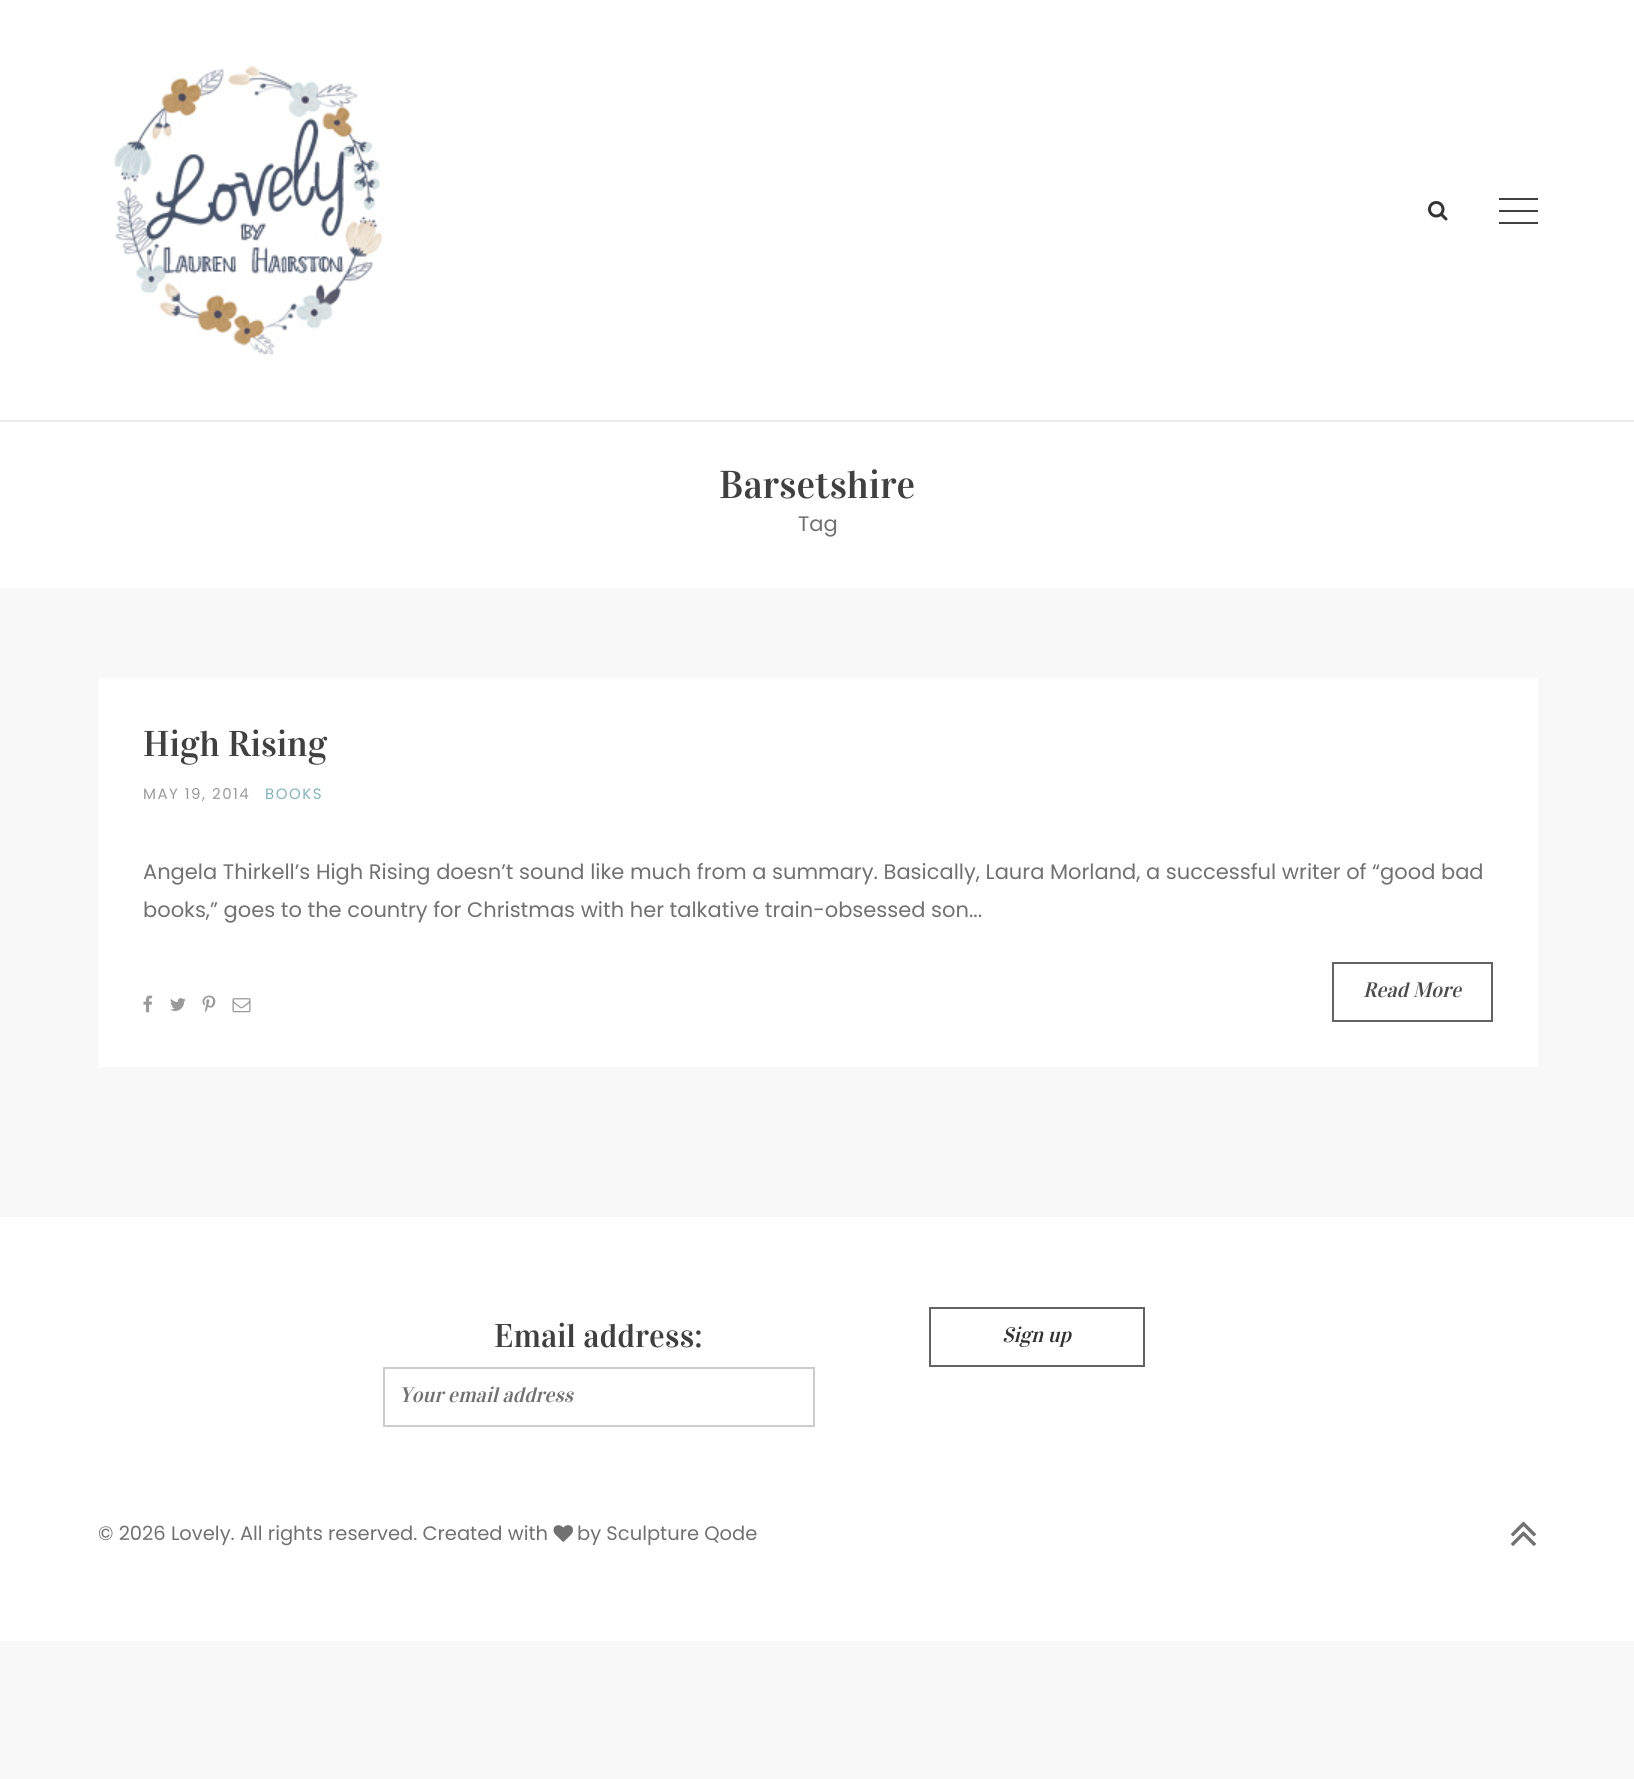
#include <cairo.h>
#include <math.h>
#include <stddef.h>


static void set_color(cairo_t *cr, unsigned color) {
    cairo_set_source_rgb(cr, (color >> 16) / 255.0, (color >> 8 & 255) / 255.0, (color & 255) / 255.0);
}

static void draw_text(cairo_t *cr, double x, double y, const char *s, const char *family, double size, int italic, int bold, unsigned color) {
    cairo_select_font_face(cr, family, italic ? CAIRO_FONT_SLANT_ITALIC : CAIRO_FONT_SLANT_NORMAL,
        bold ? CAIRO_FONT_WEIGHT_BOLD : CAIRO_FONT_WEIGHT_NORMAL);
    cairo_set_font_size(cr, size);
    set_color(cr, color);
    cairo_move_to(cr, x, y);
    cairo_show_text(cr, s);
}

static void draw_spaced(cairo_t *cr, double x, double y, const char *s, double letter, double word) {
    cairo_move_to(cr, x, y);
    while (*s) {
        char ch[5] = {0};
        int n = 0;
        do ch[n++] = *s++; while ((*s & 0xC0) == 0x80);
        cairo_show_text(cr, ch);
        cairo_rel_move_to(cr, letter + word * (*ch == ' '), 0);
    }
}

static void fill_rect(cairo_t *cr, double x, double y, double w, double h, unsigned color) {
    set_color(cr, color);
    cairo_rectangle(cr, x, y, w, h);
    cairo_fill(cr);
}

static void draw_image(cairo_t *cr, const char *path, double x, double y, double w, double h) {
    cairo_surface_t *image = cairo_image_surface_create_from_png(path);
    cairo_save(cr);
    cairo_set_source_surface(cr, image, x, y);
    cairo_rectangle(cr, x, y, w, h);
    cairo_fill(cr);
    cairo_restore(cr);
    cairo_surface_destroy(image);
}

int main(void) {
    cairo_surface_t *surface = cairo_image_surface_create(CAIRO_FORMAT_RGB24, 1634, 1779);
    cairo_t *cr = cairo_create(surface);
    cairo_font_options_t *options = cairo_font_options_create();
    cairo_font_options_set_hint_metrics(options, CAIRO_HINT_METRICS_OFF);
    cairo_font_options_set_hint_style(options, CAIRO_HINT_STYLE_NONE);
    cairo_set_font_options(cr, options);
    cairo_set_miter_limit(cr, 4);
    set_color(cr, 0xF8F8F8);
    cairo_paint(cr);
    fill_rect(cr, 0, 0, 1634, 420, 0xFFFFFF);
    draw_image(cr, "assets/img1.png", 114, 65, 269, 290);
    draw_image(cr, "assets/img2.png", 1428, 201, 20, 20);
    fill_rect(cr, 1499, 210, 39, 2, 0x404040);
    fill_rect(cr, 1499, 198, 39, 2, 0x404040);
    fill_rect(cr, 1499, 222, 39, 2, 0x404040);
    fill_rect(cr, 0, 422, 1634, 166, 0xFFFFFF);
    fill_rect(cr, 0, 420, 1634, 2, 0xEDEDED);
    draw_text(cr, 719, 498, "Barsetshire", "Vidaloka", 39, 0, 0, 0x404040);
    draw_text(cr, 798, 531, "Tag", "Poppins", 21, 0, 0, 0x717171);
    fill_rect(cr, 98, 678, 1440, 389, 0xFFFFFF);
    draw_text(cr, 143, 756, "High Rising", "Vidaloka", 36, 0, 0, 0x404040);
    cairo_select_font_face(cr, "Poppins", CAIRO_FONT_SLANT_NORMAL, CAIRO_FONT_WEIGHT_NORMAL);
    cairo_set_font_size(cr, 15);
    set_color(cr, 0x9A9A9A);
    draw_spaced(cr, 143, 799, "MAY 19, 2014", 1.5, 0);
    set_color(cr, 0x7FB5BC);
    draw_spaced(cr, 265, 799, "BOOKS", 1.5, 0);
    draw_text(cr, 143, 879, "Angela Thirkell’s High Rising doesn’t sound like much from a summary. Basically, Laura Morland, a successful writer of “good bad", "Poppins", 21, 0, 0, 0x717171);
    draw_text(cr, 143, 917, "books,” goes to the country for Christmas with her talkative train-obsessed son...", "Poppins", 21, 0, 0, 0x717171);
    cairo_rectangle(cr, 1333, 963, 159, 58);
    set_color(cr, 0x636363);
    cairo_stroke(cr);
    draw_text(cr, 1363, 997, "Read More", "Vidaloka", 21, 1, 0, 0x4C4C4C);
    draw_image(cr, "assets/img3.png", 143, 995, 10, 18);
    draw_image(cr, "assets/img4.png", 170, 998, 16, 13);
    draw_image(cr, "assets/img5.png", 202, 995, 14, 18);
    draw_image(cr, "assets/img6.png", 232, 998, 19, 15);
    fill_rect(cr, 0, 1217, 1634, 424, 0xFFFFFF);
    draw_text(cr, 494, 1347, "Email address:", "Vidaloka", 33, 0, 0, 0x404040);
    cairo_rectangle(cr, 384, 1368, 430, 58);
    set_color(cr, 0xCCCCCC);
    cairo_stroke(cr);
    draw_text(cr, 399, 1402, "Your email address", "Vidaloka", 21, 1, 0, 0x717171);
    cairo_rectangle(cr, 930, 1308, 214, 58);
    set_color(cr, 0x636363);
    cairo_stroke(cr);
    draw_text(cr, 1002, 1342, "Sign up", "Vidaloka", 21, 1, 0, 0x333333);
    draw_text(cr, 98, 1540, "© 2026 Lovely. All rights reserved. Created with", "Poppins", 19.5, 0, 0, 0x717171);
    draw_image(cr, "assets/img7.png", 553, 1525, 20, 17);
    draw_text(cr, 577, 1540, "by Sculpture Qode", "Poppins", 19.5, 0, 0, 0x717171);
    draw_image(cr, "assets/img8.png", 1511, 1521, 25, 25);
    cairo_surface_write_to_png(surface, "output.png");
    cairo_font_options_destroy(options);
    cairo_destroy(cr);
    cairo_surface_destroy(surface);
    return 0;
}
